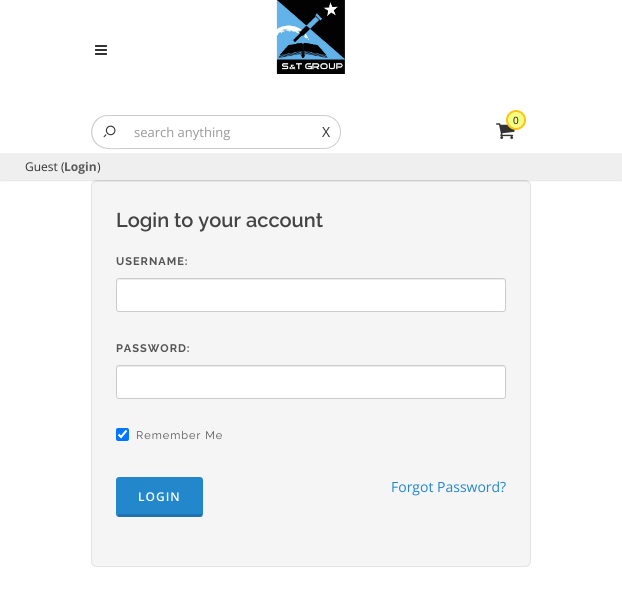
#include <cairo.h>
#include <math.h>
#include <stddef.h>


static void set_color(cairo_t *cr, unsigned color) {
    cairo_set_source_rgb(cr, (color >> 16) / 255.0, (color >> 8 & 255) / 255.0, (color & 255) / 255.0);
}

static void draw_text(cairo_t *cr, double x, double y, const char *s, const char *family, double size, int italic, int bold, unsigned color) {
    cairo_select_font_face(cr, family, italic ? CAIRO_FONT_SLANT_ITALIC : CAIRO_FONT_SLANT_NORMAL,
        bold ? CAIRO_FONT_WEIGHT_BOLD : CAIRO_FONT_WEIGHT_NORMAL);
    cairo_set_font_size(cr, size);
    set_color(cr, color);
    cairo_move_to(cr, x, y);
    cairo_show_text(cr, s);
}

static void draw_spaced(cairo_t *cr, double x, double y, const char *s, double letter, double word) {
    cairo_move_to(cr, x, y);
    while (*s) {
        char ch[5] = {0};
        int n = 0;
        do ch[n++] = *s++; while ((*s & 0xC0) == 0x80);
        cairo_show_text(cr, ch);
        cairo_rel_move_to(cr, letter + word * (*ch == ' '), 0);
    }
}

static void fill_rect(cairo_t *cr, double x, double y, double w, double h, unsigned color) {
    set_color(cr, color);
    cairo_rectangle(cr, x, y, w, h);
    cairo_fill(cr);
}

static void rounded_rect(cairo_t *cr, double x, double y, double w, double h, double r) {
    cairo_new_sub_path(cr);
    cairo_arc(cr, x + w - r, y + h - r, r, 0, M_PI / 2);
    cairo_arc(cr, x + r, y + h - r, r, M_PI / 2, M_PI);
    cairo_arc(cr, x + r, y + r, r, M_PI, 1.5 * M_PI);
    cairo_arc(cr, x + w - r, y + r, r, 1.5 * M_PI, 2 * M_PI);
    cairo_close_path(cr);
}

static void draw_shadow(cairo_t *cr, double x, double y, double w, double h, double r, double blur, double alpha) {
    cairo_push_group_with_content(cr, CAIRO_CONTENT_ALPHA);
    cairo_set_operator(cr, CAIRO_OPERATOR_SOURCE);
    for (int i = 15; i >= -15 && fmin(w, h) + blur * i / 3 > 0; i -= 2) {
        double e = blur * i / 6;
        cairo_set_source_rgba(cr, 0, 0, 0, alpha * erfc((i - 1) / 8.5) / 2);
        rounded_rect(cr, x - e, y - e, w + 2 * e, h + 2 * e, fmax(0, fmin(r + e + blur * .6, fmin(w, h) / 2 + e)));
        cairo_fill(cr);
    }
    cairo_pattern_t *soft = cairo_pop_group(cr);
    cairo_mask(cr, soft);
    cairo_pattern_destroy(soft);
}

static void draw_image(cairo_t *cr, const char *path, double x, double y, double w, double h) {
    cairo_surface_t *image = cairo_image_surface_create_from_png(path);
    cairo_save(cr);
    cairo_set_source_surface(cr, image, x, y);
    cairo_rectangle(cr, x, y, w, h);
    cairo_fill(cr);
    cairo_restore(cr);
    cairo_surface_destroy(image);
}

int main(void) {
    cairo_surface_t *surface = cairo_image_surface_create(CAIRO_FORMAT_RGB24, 622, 589);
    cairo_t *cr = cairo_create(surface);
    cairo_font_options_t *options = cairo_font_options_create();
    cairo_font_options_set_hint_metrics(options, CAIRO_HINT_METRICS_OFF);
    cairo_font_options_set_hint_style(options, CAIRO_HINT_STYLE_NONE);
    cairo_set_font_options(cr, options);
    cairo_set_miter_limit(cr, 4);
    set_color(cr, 0xFFFFFF);
    cairo_paint(cr);
    draw_image(cr, "assets/img1.png", 95, 45, 12, 10);
    draw_image(cr, "assets/img2.png", 276, 0, 69, 74);
    draw_image(cr, "assets/img3.png", 496, 123, 19, 16);
    set_color(cr, 0xF7FF83);
    cairo_arc(cr, 516, 120, 9, 0, 2 * M_PI);
    cairo_fill_preserve(cr);
    set_color(cr, 0xFFC218);
    cairo_stroke(cr);
    draw_text(cr, 513, 124, "0", "Open Sans", 10, 0, 0, 0x0E0E0E);
    set_color(cr, 0xCCCCCC);
    cairo_set_fill_rule(cr, CAIRO_FILL_RULE_EVEN_ODD);
    cairo_new_path(cr);
    cairo_move_to(cr, 108, 115);
    cairo_line_to(cr, 122, 115);
    cairo_line_to(cr, 122, 149);
    cairo_curve_to(cr, 116, 149, 107, 150, 101.5, 147.5);
    cairo_curve_to(cr, 84.5, 140.5, 89.5, 115, 108, 115);
    cairo_close_path(cr);
    cairo_move_to(cr, 108, 116);
    cairo_line_to(cr, 122, 116);
    cairo_line_to(cr, 122, 148);
    cairo_curve_to(cr, 116.5, 148, 107, 149, 102, 146.5);
    cairo_curve_to(cr, 86, 140, 91, 116, 108, 116);
    cairo_close_path(cr);
    cairo_fill(cr);
    draw_image(cr, "assets/img4.png", 103, 125, 13, 13);
    fill_rect(cr, 122, 115, 195, 1, 0xCCCCCC);
    fill_rect(cr, 122, 148, 195, 1, 0xCCCCCC);
    draw_text(cr, 134, 137, "search anything", "Open Sans", 13, 0, 0, 0x999999);
    set_color(cr, 0xCCCCCC);
    cairo_new_path(cr);
    cairo_move_to(cr, 317, 115);
    cairo_line_to(cr, 324, 115);
    cairo_curve_to(cr, 333.5, 115, 341, 122.5, 341, 132);
    cairo_curve_to(cr, 341, 141.5, 333.5, 149, 324, 149);
    cairo_line_to(cr, 317, 149);
    cairo_close_path(cr);
    cairo_move_to(cr, 317, 116);
    cairo_line_to(cr, 324, 116);
    cairo_curve_to(cr, 333, 116, 340, 123, 340, 132);
    cairo_curve_to(cr, 340, 141, 333, 148, 324, 148);
    cairo_line_to(cr, 317, 148);
    cairo_close_path(cr);
    cairo_fill(cr);
    draw_text(cr, 322, 137, "X", "Open Sans", 14, 0, 0, 0x333333);
    set_color(cr, 0xF5F5F5);
    rounded_rect(cr, 91, 180, 440, 387, 6);
    cairo_fill(cr);
    set_color(cr, 0xE9E9E9);
    cairo_set_fill_rule(cr, CAIRO_FILL_RULE_WINDING);
    cairo_new_path(cr);
    cairo_move_to(cr, 97, 182);
    cairo_line_to(cr, 525, 182);
    cairo_curve_to(cr, 528, 182, 530, 184, 530, 187);
    cairo_curve_to(cr, 530, 184, 528, 181, 525, 181);
    cairo_line_to(cr, 97, 181);
    cairo_curve_to(cr, 94, 181, 92, 184, 92, 187);
    cairo_curve_to(cr, 92, 184, 94, 182, 97, 182);
    cairo_close_path(cr);
    cairo_fill(cr);
    rounded_rect(cr, 91.5, 180.5, 439, 386, 5.5);
    set_color(cr, 0xE3E3E3);
    cairo_set_line_width(cr, 1);
    cairo_stroke(cr);
    set_color(cr, 0x000000);
    draw_shadow(cr, 0, 154, 622, 27, 0, 0.5, 0.1);
    fill_rect(cr, 0, 153, 622, 27, 0xEFEFEF);
    draw_text(cr, 25, 171, "Guest (", "Open Sans", 12, 0, 0, 0x333333);
    draw_text(cr, 64, 171, "Login", "Open Sans", 12, 0, 1, 0x5B5B5B);
    draw_text(cr, 97, 171, ")", "Open Sans", 12, 0, 0, 0x333333);
    draw_text(cr, 116, 227, "Login to your account", "Raleway SemiBold", 20, 0, 0, 0x444444);
    cairo_select_font_face(cr, "Raleway", CAIRO_FONT_SLANT_NORMAL, CAIRO_FONT_WEIGHT_BOLD);
    cairo_set_font_size(cr, 11);
    set_color(cr, 0x555555);
    draw_spaced(cr, 116, 265, "USERNAME:", 1, 0);
    set_color(cr, 0xFFFFFF);
    rounded_rect(cr, 116, 278, 390, 34, 3);
    cairo_fill(cr);
    set_color(cr, 0xECECEC);
    cairo_new_path(cr);
    cairo_move_to(cr, 119, 280);
    cairo_line_to(cr, 503, 280);
    cairo_curve_to(cr, 504, 280, 505, 281, 505, 282);
    cairo_curve_to(cr, 505, 281, 505, 279, 503, 279);
    cairo_line_to(cr, 119, 279);
    cairo_line_to(cr, 117, 280);
    cairo_line_to(cr, 117, 282);
    cairo_curve_to(cr, 117, 281, 118, 280, 119, 280);
    cairo_close_path(cr);
    cairo_fill(cr);
    rounded_rect(cr, 116.5, 278.5, 389, 33, 2.5);
    set_color(cr, 0xCCCCCC);
    cairo_stroke(cr);
    set_color(cr, 0x555555);
    draw_spaced(cr, 116, 352, "PASSWORD:", 1, 0);
    set_color(cr, 0xFFFFFF);
    rounded_rect(cr, 116, 365, 390, 34, 3);
    cairo_fill(cr);
    set_color(cr, 0xECECEC);
    cairo_new_path(cr);
    cairo_move_to(cr, 119, 367);
    cairo_line_to(cr, 503, 367);
    cairo_curve_to(cr, 504, 367, 505, 368, 505, 369);
    cairo_curve_to(cr, 505, 368, 505, 366, 503, 366);
    cairo_line_to(cr, 119, 366);
    cairo_line_to(cr, 117, 367);
    cairo_line_to(cr, 117, 369);
    cairo_curve_to(cr, 117, 368, 118, 367, 119, 367);
    cairo_close_path(cr);
    cairo_fill(cr);
    rounded_rect(cr, 116.5, 365.5, 389, 33, 2.5);
    set_color(cr, 0xCCCCCC);
    cairo_stroke(cr);
    set_color(cr, 0x0075FF);
    rounded_rect(cr, 116, 428, 13, 13, 2);
    cairo_fill(cr);
    cairo_new_path(cr);
    cairo_move_to(cr, 118.5, 434.5);
    cairo_line_to(cr, 121, 437);
    cairo_line_to(cr, 126.5, 430.5);
    set_color(cr, 0xFFFFFF);
    cairo_set_line_width(cr, 2.1);
    cairo_stroke(cr);
    cairo_select_font_face(cr, "Raleway", CAIRO_FONT_SLANT_NORMAL, CAIRO_FONT_WEIGHT_NORMAL);
    set_color(cr, 0x555555);
    draw_spaced(cr, 136, 439, "Remember Me", 1, 0);
    draw_text(cr, 391, 492, "Forgot Password?", "Open Sans", 14, 0, 0, 0x2387CC);
    rounded_rect(cr, 116, 477, 87, 40, 3);
    cairo_fill(cr);
    cairo_set_source_rgba(cr, 0, 0, 0, 0.15);
    cairo_rectangle(cr, 118, 514, 84, 3);
    cairo_fill(cr);
    cairo_select_font_face(cr, "Open Sans SemiBold", CAIRO_FONT_SLANT_NORMAL, CAIRO_FONT_WEIGHT_NORMAL);
    cairo_set_font_size(cr, 12);
    set_color(cr, 0xFFFFFF);
    draw_spaced(cr, 138, 501, "LOGIN", 1, 0);
    cairo_surface_write_to_png(surface, "output.png");
    cairo_font_options_destroy(options);
    cairo_destroy(cr);
    cairo_surface_destroy(surface);
    return 0;
}
